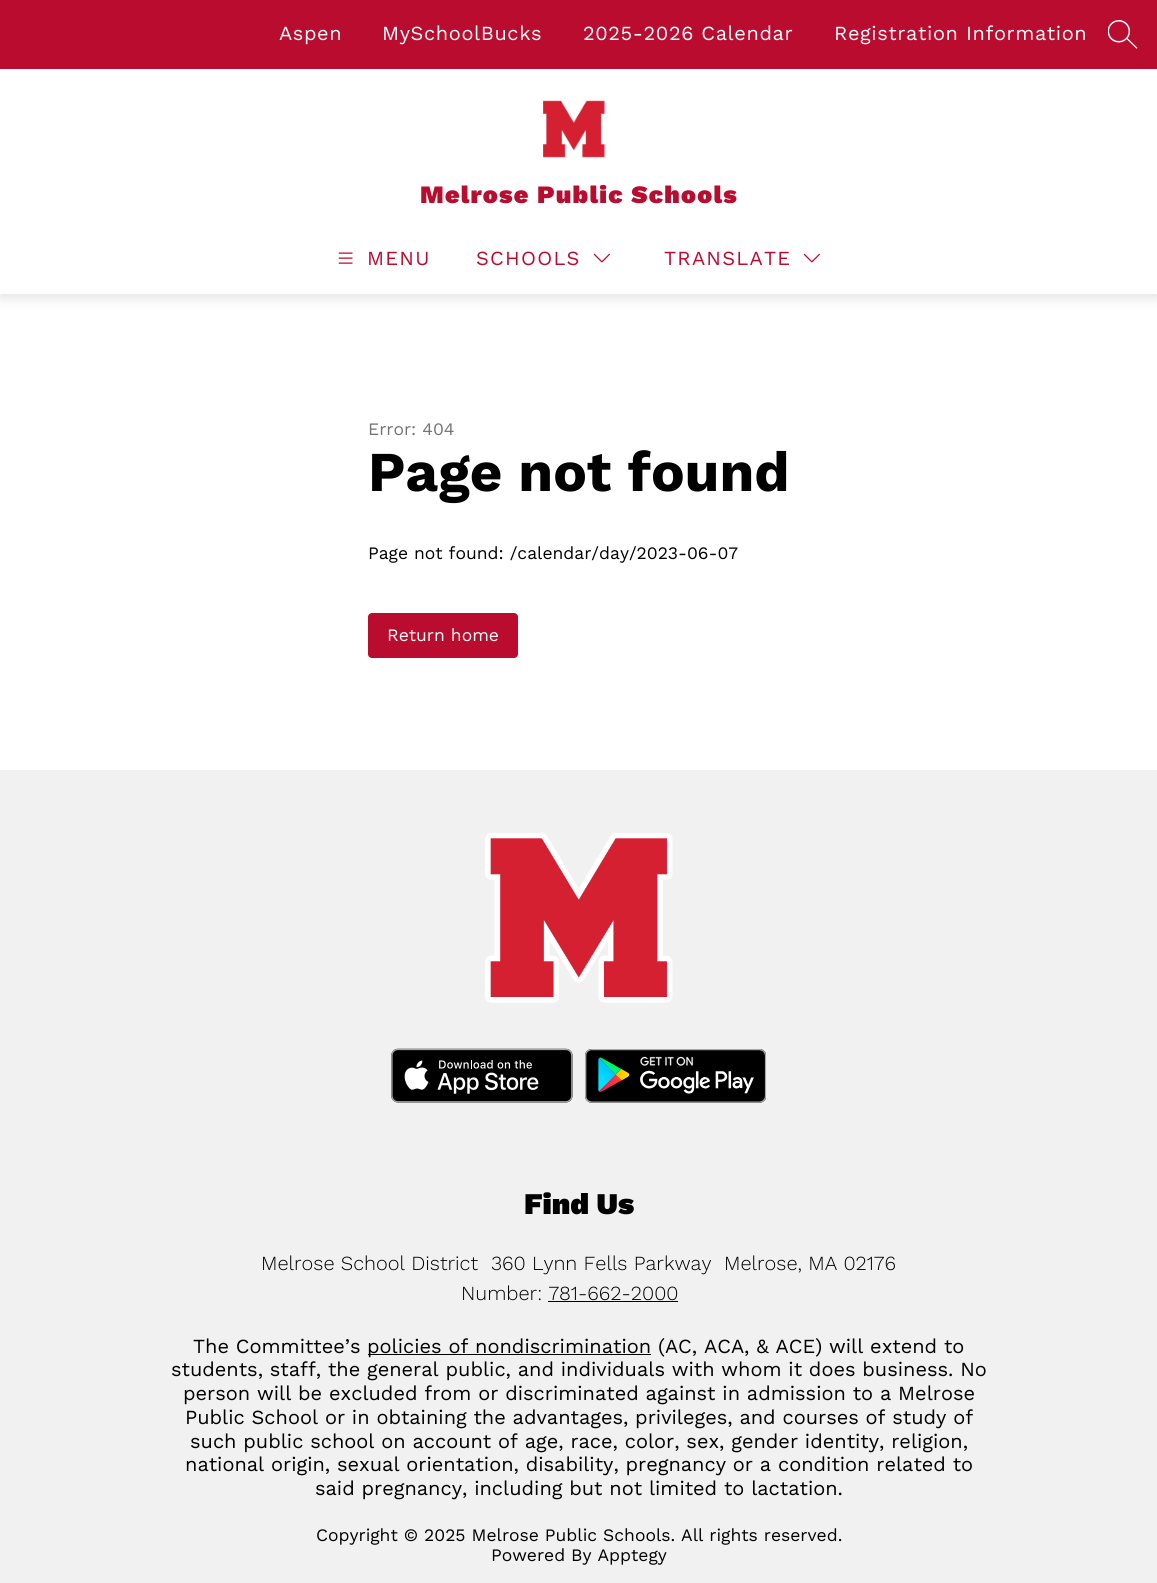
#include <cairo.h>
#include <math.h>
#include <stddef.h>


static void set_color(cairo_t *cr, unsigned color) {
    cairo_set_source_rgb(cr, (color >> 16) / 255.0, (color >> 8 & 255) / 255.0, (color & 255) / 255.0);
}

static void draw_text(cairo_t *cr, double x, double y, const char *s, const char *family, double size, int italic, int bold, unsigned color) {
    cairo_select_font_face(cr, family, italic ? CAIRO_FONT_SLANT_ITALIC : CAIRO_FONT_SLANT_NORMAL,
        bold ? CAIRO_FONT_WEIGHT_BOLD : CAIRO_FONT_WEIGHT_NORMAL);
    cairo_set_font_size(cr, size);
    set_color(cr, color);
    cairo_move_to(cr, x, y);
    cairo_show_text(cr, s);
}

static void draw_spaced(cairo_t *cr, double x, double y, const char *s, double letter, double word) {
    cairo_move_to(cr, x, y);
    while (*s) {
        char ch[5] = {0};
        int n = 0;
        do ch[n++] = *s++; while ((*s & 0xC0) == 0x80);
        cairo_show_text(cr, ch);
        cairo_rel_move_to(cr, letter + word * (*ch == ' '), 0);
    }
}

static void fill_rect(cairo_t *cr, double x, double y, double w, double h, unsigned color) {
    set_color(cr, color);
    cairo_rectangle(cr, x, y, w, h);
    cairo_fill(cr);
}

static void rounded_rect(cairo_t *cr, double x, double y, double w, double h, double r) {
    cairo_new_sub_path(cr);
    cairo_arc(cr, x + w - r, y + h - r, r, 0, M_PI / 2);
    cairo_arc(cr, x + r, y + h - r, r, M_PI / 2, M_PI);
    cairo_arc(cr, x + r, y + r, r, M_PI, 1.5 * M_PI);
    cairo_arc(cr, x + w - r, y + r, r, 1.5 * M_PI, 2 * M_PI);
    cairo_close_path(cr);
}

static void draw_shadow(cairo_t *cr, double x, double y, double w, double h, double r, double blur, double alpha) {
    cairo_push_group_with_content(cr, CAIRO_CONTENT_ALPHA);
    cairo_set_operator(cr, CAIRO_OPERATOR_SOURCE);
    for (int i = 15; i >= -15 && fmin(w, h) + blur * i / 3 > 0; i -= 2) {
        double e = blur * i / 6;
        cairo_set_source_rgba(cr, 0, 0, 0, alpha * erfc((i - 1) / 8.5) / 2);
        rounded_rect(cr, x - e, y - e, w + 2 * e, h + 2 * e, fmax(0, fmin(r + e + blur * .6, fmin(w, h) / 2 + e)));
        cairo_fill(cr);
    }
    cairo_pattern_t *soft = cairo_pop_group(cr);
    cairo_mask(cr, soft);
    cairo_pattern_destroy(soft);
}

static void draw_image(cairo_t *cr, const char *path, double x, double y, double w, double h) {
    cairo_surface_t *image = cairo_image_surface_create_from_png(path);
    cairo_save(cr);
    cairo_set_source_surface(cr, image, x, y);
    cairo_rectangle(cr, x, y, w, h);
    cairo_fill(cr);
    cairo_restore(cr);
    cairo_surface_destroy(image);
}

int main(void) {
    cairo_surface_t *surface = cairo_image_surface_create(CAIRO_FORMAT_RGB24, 1157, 1583);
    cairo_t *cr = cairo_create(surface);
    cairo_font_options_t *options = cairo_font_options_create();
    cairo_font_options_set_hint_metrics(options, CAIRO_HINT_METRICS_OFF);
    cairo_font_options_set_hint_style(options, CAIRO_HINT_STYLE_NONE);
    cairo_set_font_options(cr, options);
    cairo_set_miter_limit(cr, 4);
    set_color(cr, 0xFFFFFF);
    cairo_paint(cr);
    set_color(cr, 0x000000);
    draw_shadow(cr, 0, 4, 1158, 295, 0, 6, 0.1);
    fill_rect(cr, 0, 69, 1157, 225, 0xFFFFFF);
    fill_rect(cr, 0, 0, 1157, 69, 0xBA0C2F);
    cairo_select_font_face(cr, "Work Sans", CAIRO_FONT_SLANT_NORMAL, CAIRO_FONT_WEIGHT_NORMAL);
    cairo_set_font_size(cr, 20);
    set_color(cr, 0xFFFFFF);
    draw_spaced(cr, 279, 40, "Aspen", 0.6, 0);
    draw_spaced(cr, 382, 40, "MySchoolBucks", 0.6, 0);
    draw_spaced(cr, 583, 40, "2025-2026 Calendar", 0.6, 0);
    draw_spaced(cr, 834, 40, "Registration Information", 0.6, 0);
    draw_image(cr, "assets/img1.png", 1108, 20, 30, 29);
    draw_image(cr, "assets/img2.png", 543, 100, 62, 58);
    cairo_select_font_face(cr, "Work Sans Black", CAIRO_FONT_SLANT_NORMAL, CAIRO_FONT_WEIGHT_NORMAL);
    cairo_set_font_size(cr, 25);
    set_color(cr, 0xBA0C2F);
    draw_spaced(cr, 420, 203, "Melrose Public Schools", 1.25, 0);
    draw_image(cr, "assets/img3.png", 338, 252, 15, 12);
    cairo_select_font_face(cr, "Work Sans", CAIRO_FONT_SLANT_NORMAL, CAIRO_FONT_WEIGHT_NORMAL);
    cairo_set_font_size(cr, 20);
    draw_spaced(cr, 367, 265, "MENU", 1.25, 0);
    draw_spaced(cr, 476, 265, "SCHOOLS", 1.25, 0);
    draw_image(cr, "assets/img4.png", 593, 253, 17, 10);
    draw_spaced(cr, 664, 265, "TRANSLATE", 1.25, 0);
    draw_image(cr, "assets/img4.png", 803, 253, 17, 10);
    draw_text(cr, 368, 435, "Error: 404", "Work Sans", 17.5, 0, 0, 0x747474);
    draw_text(cr, 368, 491, "Page not found", "Work Sans", 56.25, 0, 1, 0x000000);
    draw_text(cr, 368, 559, "Page not found: /calendar/day/2023-06-07", "Work Sans", 17.5, 0, 0, 0x000000);
    set_color(cr, 0xBA0C2F);
    rounded_rect(cr, 368, 613, 150, 45, 4);
    cairo_fill(cr);
    draw_text(cr, 387, 641, "Return home", "Work Sans", 17.5, 0, 0, 0xFFFFFF);
    fill_rect(cr, 0, 770, 1157, 813, 0xF1F1F1);
    draw_image(cr, "assets/img5.png", 485, 833, 188, 170);
    draw_image(cr, "assets/img6.png", 391, 1048, 182, 55);
    draw_image(cr, "assets/img7.png", 585, 1049, 181, 54);
    draw_text(cr, 524, 1214, "Find Us", "Work Sans Black", 30, 0, 0, 0x000000);
    draw_text(cr, 261, 1270, "Melrose School District", "Work Sans Light", 20, 0, 0, 0x000000);
    draw_text(cr, 491, 1270, "360 Lynn Fells Parkway", "Work Sans Light", 20, 0, 0, 0x000000);
    draw_text(cr, 724, 1270, "Melrose, MA 02176", "Work Sans Light", 20, 0, 0, 0x000000);
    draw_text(cr, 461, 1300, "Number: 781-662-2000", "Work Sans Light", 20, 0, 0, 0x000000);
    fill_rect(cr, 548, 1301, 130, 1, 0x000000);
    draw_text(cr, 193, 1353, "The Committee’s", "Work Sans", 20, 0, 0, 0x000000);
    fill_rect(cr, 368, 1354, 283, 1, 0x000000);
    draw_text(cr, 367, 1353, "policies of nondiscrimination (AC, ACA, & ACE) will extend to", "Work Sans", 20, 0, 0, 0x000000);
    draw_text(cr, 171, 1376, "students, staff, the general public, and individuals with whom it does business. No", "Work Sans", 20, 0, 0, 0x000000);
    draw_text(cr, 183, 1400, "person will be excluded from or discriminated against in admission to a Melrose", "Work Sans", 20, 0, 0, 0x000000);
    draw_text(cr, 185, 1424, "Public School or in obtaining the advantages, privileges, and courses of study of", "Work Sans", 20, 0, 0, 0x000000);
    draw_text(cr, 190, 1448, "such public school on account of age, race, color, sex, gender identity, religion,", "Work Sans", 20, 0, 0, 0x000000);
    draw_text(cr, 185, 1471, "national origin, sexual orientation, disability, pregnancy or a condition related to", "Work Sans", 20, 0, 0, 0x000000);
    draw_text(cr, 315, 1495, "said pregnancy, including but not limited to lactation.", "Work Sans", 20, 0, 0, 0x000000);
    draw_text(cr, 316, 1541, "Copyright © 2025 Melrose Public Schools. All rights reserved.", "Work Sans", 17.5, 0, 0, 0x000000);
    draw_text(cr, 491, 1561, "Powered By Apptegy", "Work Sans", 17.5, 0, 0, 0x000000);
    cairo_surface_write_to_png(surface, "output.png");
    cairo_font_options_destroy(options);
    cairo_destroy(cr);
    cairo_surface_destroy(surface);
    return 0;
}
